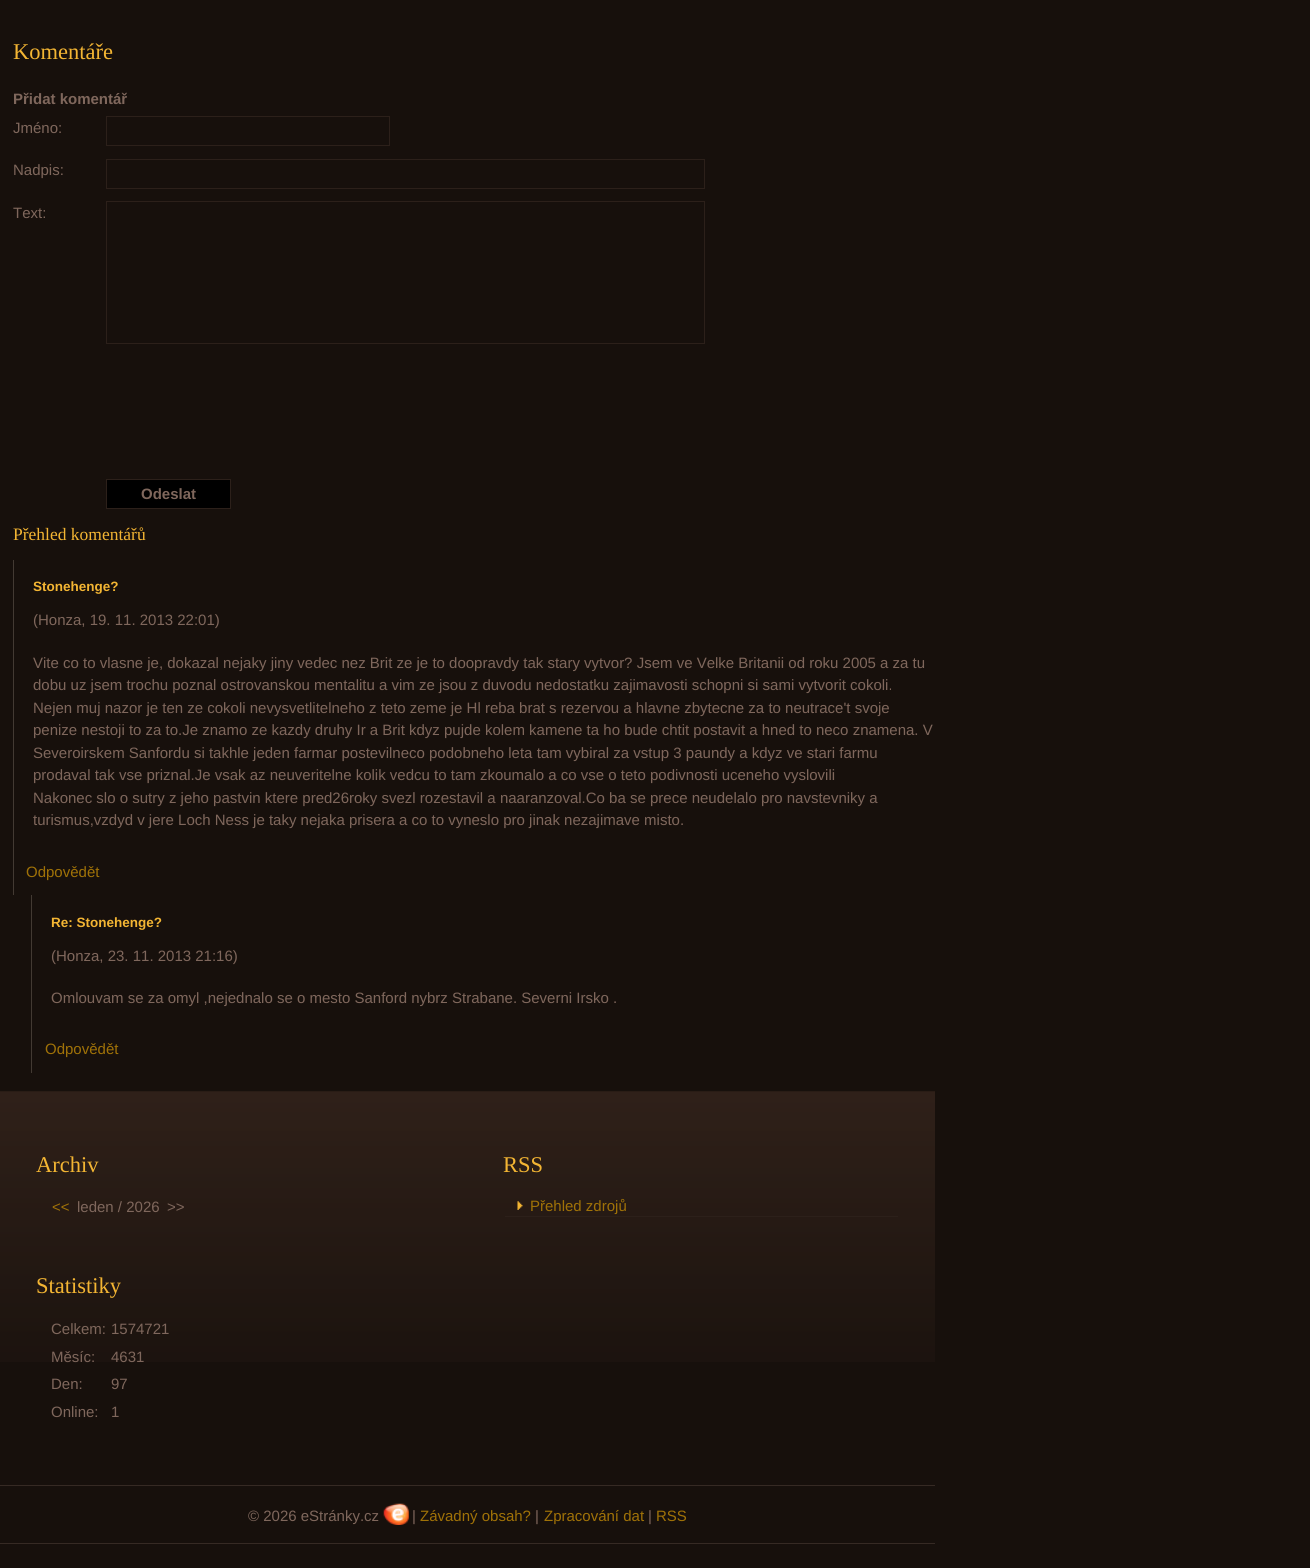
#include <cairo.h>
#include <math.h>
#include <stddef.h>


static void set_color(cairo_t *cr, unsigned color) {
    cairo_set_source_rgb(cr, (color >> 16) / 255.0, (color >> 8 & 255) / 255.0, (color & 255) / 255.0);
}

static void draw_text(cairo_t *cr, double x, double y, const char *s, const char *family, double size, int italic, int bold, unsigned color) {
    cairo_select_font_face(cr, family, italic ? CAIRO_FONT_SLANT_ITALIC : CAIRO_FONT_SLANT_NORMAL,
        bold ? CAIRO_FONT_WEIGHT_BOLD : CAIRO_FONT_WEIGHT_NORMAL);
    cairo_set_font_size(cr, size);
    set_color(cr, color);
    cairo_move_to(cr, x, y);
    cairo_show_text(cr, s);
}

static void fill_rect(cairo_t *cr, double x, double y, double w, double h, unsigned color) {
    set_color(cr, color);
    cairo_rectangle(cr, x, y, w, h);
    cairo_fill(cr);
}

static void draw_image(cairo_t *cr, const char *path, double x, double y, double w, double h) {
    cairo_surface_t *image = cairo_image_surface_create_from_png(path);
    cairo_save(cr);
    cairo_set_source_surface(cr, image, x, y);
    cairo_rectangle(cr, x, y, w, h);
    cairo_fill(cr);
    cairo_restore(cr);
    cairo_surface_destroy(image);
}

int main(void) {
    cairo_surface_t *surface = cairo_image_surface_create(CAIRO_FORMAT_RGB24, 1310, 1568);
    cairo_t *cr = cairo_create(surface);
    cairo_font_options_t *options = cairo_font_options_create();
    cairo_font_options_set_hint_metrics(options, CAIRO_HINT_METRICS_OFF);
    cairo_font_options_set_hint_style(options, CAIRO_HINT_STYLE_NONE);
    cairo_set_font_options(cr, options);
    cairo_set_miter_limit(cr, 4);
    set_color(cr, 0x17100C);
    cairo_paint(cr);
    draw_text(cr, 13, 59, "Komentáře", "Liberation Serif", 22.5, 0, 0, 0xF3B533);
    draw_text(cr, 13, 104, "Přidat komentář", "Liberation Sans", 15, 0, 1, 0x7F675C);
    draw_text(cr, 13, 133, "Jméno:", "Liberation Sans", 15, 0, 0, 0x7F675C);
    cairo_rectangle(cr, 106.5, 116.5, 283, 29);
    set_color(cr, 0x2C201A);
    cairo_set_line_width(cr, 1);
    cairo_stroke(cr);
    draw_text(cr, 13, 175, "Nadpis:", "Liberation Sans", 15, 0, 0, 0x7F675C);
    cairo_rectangle(cr, 106.5, 159.5, 598, 29);
    set_color(cr, 0x2C201A);
    cairo_stroke(cr);
    draw_text(cr, 13, 218, "Text:", "Liberation Sans", 15, 0, 0, 0x7F675C);
    cairo_rectangle(cr, 106.5, 201.5, 598, 142);
    set_color(cr, 0x2C201A);
    cairo_stroke(cr);
    set_color(cr, 0x000000);
    cairo_rectangle(cr, 106.5, 479.5, 124, 29);
    cairo_fill_preserve(cr);
    set_color(cr, 0x2C201A);
    cairo_stroke(cr);
    draw_text(cr, 141, 499, "Odeslat", "Liberation Sans", 15, 0, 1, 0x7F675C);
    draw_text(cr, 13, 540, "Přehled komentářů", "Liberation Serif", 17.5, 0, 0, 0xF3B533);
    fill_rect(cr, 13, 560, 1, 335, 0x433A33);
    draw_text(cr, 33, 591, "Stonehenge?", "Liberation Sans", 13.5, 0, 1, 0xF3B533);
    draw_text(cr, 33, 625, "(Honza, 19. 11. 2013 22:01)", "Liberation Sans", 15, 0, 0, 0x7F675C);
    draw_text(cr, 33, 668, "Vite co to vlasne je, dokazal nejaky jiny vedec nez Brit ze je to doopravdy tak stary vytvor? Jsem ve Velke Britanii od roku 2005 a za tu", "Liberation Sans", 15, 0, 0, 0x7F675C);
    draw_text(cr, 33, 690, "dobu uz jsem trochu poznal ostrovanskou mentalitu a vim ze jsou z duvodu nedostatku zajimavosti schopni si sami vytvorit cokoli.", "Liberation Sans", 15, 0, 0, 0x7F675C);
    draw_text(cr, 33, 713, "Nejen muj nazor je ten ze cokoli nevysvetlitelneho z teto zeme je Hl reba brat s rezervou a hlavne zbytecne za to neutrace't svoje", "Liberation Sans", 15, 0, 0, 0x7F675C);
    draw_text(cr, 33, 735, "penize nestoji to za to.Je znamo ze kazdy druhy Ir a Brit kdyz pujde kolem kamene ta ho bude chtit postavit a hned to neco znamena. V", "Liberation Sans", 15, 0, 0, 0x7F675C);
    draw_text(cr, 33, 758, "Severoirskem Sanfordu si takhle jeden farmar postevilneco podobneho leta tam vybiral za vstup 3 paundy a kdyz ve stari farmu", "Liberation Sans", 15, 0, 0, 0x7F675C);
    draw_text(cr, 33, 780, "prodaval tak vse priznal.Je vsak az neuveritelne kolik vedcu to tam zkoumalo a co vse o teto podivnosti uceneho vyslovili", "Liberation Sans", 15, 0, 0, 0x7F675C);
    draw_text(cr, 33, 803, "Nakonec slo o sutry z jeho pastvin ktere pred26roky svezl rozestavil a naaranzoval.Co ba se prece neudelalo pro navstevniky a", "Liberation Sans", 15, 0, 0, 0x7F675C);
    draw_text(cr, 33, 825, "turismus,vzdyd v jere Loch Ness je taky nejaka prisera a co to vyneslo pro jinak nezajimave misto.", "Liberation Sans", 15, 0, 0, 0x7F675C);
    draw_text(cr, 26, 877, "Odpovědět", "Liberation Sans", 15, 0, 0, 0xA07207);
    fill_rect(cr, 31, 895, 1, 178, 0x433A33);
    draw_text(cr, 51, 927, "Re: Stonehenge?", "Liberation Sans", 13.5, 0, 1, 0xF3B533);
    draw_text(cr, 51, 961, "(Honza, 23. 11. 2013 21:16)", "Liberation Sans", 15, 0, 0, 0x7F675C);
    draw_text(cr, 51, 1003, "Omlouvam se za omyl ,nejednalo se o mesto Sanford nybrz Strabane. Severni Irsko .", "Liberation Sans", 15, 0, 0, 0x7F675C);
    draw_text(cr, 45, 1054, "Odpovědět", "Liberation Sans", 15, 0, 0, 0xA07207);
    draw_image(cr, "assets/img1.png", 0, 1091, 935, 271);
    draw_text(cr, 36, 1172, "Archiv", "Liberation Serif", 22.5, 0, 0, 0xF3B533);
    draw_text(cr, 52, 1212, "<<", "Liberation Sans", 15, 0, 0, 0xA07207);
    draw_text(cr, 77, 1212, "leden / 2026", "Liberation Sans", 15, 0, 0, 0x7F675C);
    draw_text(cr, 167, 1212, ">>", "Liberation Sans", 15, 0, 0, 0x7F675C);
    draw_text(cr, 503, 1172, "RSS", "Liberation Serif", 22.5, 0, 0, 0xF3B533);
    draw_image(cr, "assets/img2.png", 517, 1201, 6, 9);
    fill_rect(cr, 505, 1216, 393, 1, 0x2C201A);
    draw_text(cr, 530, 1211, "Přehled zdrojů", "Liberation Sans", 15, 0, 0, 0xA07207);
    draw_text(cr, 36, 1293, "Statistiky", "Liberation Serif", 22.5, 0, 0, 0xF3B533);
    draw_text(cr, 51, 1334, "Celkem:", "Liberation Sans", 15, 0, 0, 0x7F675C);
    draw_text(cr, 111, 1334, "1574721", "Liberation Sans", 15, 0, 0, 0x7F675C);
    draw_text(cr, 51, 1362, "Měsíc:", "Liberation Sans", 15, 0, 0, 0x7F675C);
    draw_text(cr, 111, 1362, "4631", "Liberation Sans", 15, 0, 0, 0x7F675C);
    draw_text(cr, 51, 1389, "Den:", "Liberation Sans", 15, 0, 0, 0x7F675C);
    draw_text(cr, 111, 1389, "97", "Liberation Sans", 15, 0, 0, 0x7F675C);
    draw_text(cr, 51, 1417, "Online:", "Liberation Sans", 15, 0, 0, 0x7F675C);
    draw_text(cr, 111, 1417, "1", "Liberation Sans", 15, 0, 0, 0x7F675C);
    fill_rect(cr, 0, 1485, 935, 1, 0x362A24);
    fill_rect(cr, 0, 1543, 935, 1, 0x362A24);
    draw_text(cr, 248, 1521, "© 2026 eStránky.cz", "Liberation Sans", 15, 0, 0, 0x7F675C);
    draw_image(cr, "assets/img3.png", 383, 1503, 26, 22);
    draw_text(cr, 412, 1521, "|", "Liberation Sans", 15, 0, 0, 0x7F675C);
    draw_text(cr, 420, 1521, "Závadný obsah?", "Liberation Sans", 15, 0, 0, 0xA07207);
    draw_text(cr, 535, 1521, "|", "Liberation Sans", 15, 0, 0, 0x7F675C);
    draw_text(cr, 544, 1521, "Zpracování dat", "Liberation Sans", 15, 0, 0, 0xA07207);
    draw_text(cr, 648, 1521, "|", "Liberation Sans", 15, 0, 0, 0x7F675C);
    draw_text(cr, 656, 1521, "RSS", "Liberation Sans", 15, 0, 0, 0xA07207);
    cairo_surface_write_to_png(surface, "output.png");
    cairo_font_options_destroy(options);
    cairo_destroy(cr);
    cairo_surface_destroy(surface);
    return 0;
}
